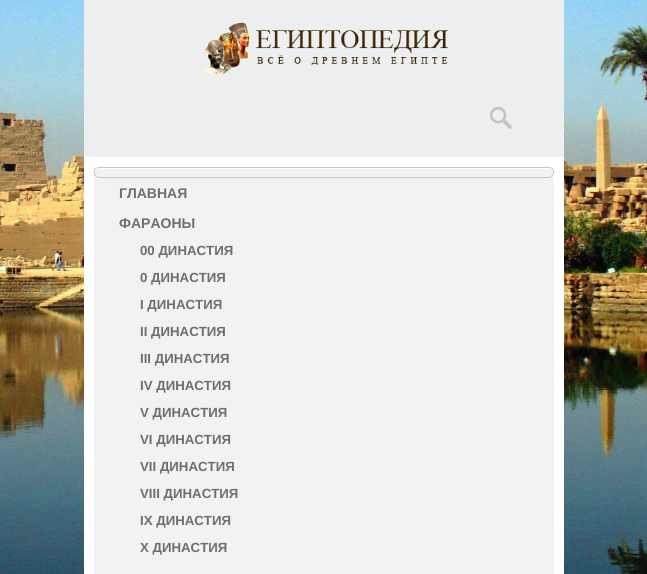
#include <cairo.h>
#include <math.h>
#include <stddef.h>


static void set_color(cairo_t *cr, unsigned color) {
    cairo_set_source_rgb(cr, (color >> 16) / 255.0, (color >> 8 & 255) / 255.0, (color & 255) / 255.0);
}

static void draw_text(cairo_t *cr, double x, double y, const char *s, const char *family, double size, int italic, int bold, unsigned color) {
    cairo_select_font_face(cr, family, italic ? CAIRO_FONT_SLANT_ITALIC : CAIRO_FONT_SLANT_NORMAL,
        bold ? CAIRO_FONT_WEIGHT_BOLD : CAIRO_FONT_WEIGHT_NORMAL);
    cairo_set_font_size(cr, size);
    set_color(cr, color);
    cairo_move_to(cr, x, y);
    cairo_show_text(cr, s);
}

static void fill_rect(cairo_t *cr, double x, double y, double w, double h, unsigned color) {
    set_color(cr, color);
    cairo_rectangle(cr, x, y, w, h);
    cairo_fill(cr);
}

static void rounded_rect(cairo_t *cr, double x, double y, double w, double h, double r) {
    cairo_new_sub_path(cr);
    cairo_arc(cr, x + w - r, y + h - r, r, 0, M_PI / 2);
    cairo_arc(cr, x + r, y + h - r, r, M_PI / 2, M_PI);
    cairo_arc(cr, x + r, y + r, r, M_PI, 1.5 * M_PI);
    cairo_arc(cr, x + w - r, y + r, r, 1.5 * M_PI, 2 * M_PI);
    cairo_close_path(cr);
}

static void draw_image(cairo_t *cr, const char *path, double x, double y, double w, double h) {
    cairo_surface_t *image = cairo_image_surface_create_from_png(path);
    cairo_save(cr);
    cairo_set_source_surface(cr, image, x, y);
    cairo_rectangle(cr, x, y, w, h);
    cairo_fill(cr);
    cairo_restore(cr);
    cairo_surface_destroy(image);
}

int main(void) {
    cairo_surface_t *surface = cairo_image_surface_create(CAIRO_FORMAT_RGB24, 647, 574);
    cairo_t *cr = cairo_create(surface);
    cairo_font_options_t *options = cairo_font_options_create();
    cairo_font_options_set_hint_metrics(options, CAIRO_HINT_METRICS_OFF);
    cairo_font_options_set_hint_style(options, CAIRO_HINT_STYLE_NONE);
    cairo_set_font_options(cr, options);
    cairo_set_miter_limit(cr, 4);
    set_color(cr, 0xFFFFFF);
    cairo_paint(cr);
    draw_image(cr, "assets/img1.png", 0, 0, 647, 574);
    draw_image(cr, "assets/img2.png", 0, 0, 647, 574);
    fill_rect(cr, 84, 0, 480, 157, 0xECEEEF);
    draw_image(cr, "assets/img3.png", 201, 21, 248, 55);
    draw_image(cr, "assets/img4.png", 490, 107, 22, 22);
    fill_rect(cr, 84, 157, 480, 417, 0xFFFFFF);
    set_color(cr, 0xF2F2F2);
    rounded_rect(cr, 94, 167, 460, 11, 5);
    cairo_fill(cr);
    set_color(cr, 0xFFFFFF);
    cairo_new_path(cr);
    cairo_move_to(cr, 99, 169);
    cairo_line_to(cr, 549, 169);
    cairo_curve_to(cr, 552, 169, 553, 171, 553, 174);
    cairo_line_to(cr, 553, 172);
    cairo_curve_to(cr, 553, 169, 551, 167, 549, 167);
    cairo_line_to(cr, 99, 167);
    cairo_curve_to(cr, 97, 167, 95, 169, 95, 172);
    cairo_line_to(cr, 95, 173);
    cairo_curve_to(cr, 95, 171, 97, 169, 99, 169);
    cairo_close_path(cr);
    cairo_fill(cr);
    set_color(cr, 0xCBCBCB);
    cairo_new_path(cr);
    cairo_move_to(cr, 99, 168);
    cairo_line_to(cr, 549, 168);
    cairo_curve_to(cr, 552, 168, 553, 171, 553, 173);
    cairo_curve_to(cr, 553, 171, 552, 167, 549, 167);
    cairo_line_to(cr, 98, 167);
    cairo_line_to(cr, 96, 169);
    cairo_line_to(cr, 95, 172);
    cairo_curve_to(cr, 95, 170, 97, 168, 99, 168);
    cairo_close_path(cr);
    cairo_fill(cr);
    cairo_set_fill_rule(cr, CAIRO_FILL_RULE_EVEN_ODD);
    cairo_new_path(cr);
    cairo_move_to(cr, 99, 167);
    cairo_line_to(cr, 549, 167);
    cairo_curve_to(cr, 552, 167, 554, 169, 554, 172);
    cairo_curve_to(cr, 554, 175, 552, 178, 549, 178);
    cairo_line_to(cr, 99, 178);
    cairo_curve_to(cr, 92, 178, 92, 167, 99, 167);
    cairo_close_path(cr);
    cairo_move_to(cr, 99, 167);
    cairo_line_to(cr, 549, 167);
    cairo_curve_to(cr, 552, 167, 553, 170, 553, 173);
    cairo_curve_to(cr, 553, 175, 551, 177, 549, 177);
    cairo_line_to(cr, 99, 177);
    cairo_curve_to(cr, 93, 177, 94, 167, 99, 167);
    cairo_close_path(cr);
    cairo_fill(cr);
    fill_rect(cr, 94, 178, 460, 396, 0xF2F2F2);
    draw_text(cr, 119, 198, "ГЛАВНАЯ", "Liberation Sans", 14, 0, 1, 0x6E6E6E);
    draw_text(cr, 119, 228, "ФАРАОНЫ", "Liberation Sans", 14, 0, 1, 0x6E6E6E);
    draw_text(cr, 140, 255, "00 ДИНАСТИЯ", "Liberation Sans", 13.25, 0, 1, 0x6E6E6E);
    draw_text(cr, 140, 282, "0 ДИНАСТИЯ", "Liberation Sans", 13.25, 0, 1, 0x6E6E6E);
    draw_text(cr, 140, 309, "I ДИНАСТИЯ", "Liberation Sans", 13.25, 0, 1, 0x6E6E6E);
    draw_text(cr, 140, 336, "II ДИНАСТИЯ", "Liberation Sans", 13.25, 0, 1, 0x6E6E6E);
    draw_text(cr, 140, 363, "III ДИНАСТИЯ", "Liberation Sans", 13.25, 0, 1, 0x6E6E6E);
    draw_text(cr, 140, 390, "IV ДИНАСТИЯ", "Liberation Sans", 13.25, 0, 1, 0x6E6E6E);
    draw_text(cr, 140, 417, "V ДИНАСТИЯ", "Liberation Sans", 13.25, 0, 1, 0x6E6E6E);
    draw_text(cr, 140, 444, "VI ДИНАСТИЯ", "Liberation Sans", 13.25, 0, 1, 0x6E6E6E);
    draw_text(cr, 140, 471, "VII ДИНАСТИЯ", "Liberation Sans", 13.25, 0, 1, 0x6E6E6E);
    draw_text(cr, 140, 498, "VIII ДИНАСТИЯ", "Liberation Sans", 13.25, 0, 1, 0x6E6E6E);
    draw_text(cr, 140, 525, "IX ДИНАСТИЯ", "Liberation Sans", 13.25, 0, 1, 0x6E6E6E);
    draw_text(cr, 140, 552, "X ДИНАСТИЯ", "Liberation Sans", 13.25, 0, 1, 0x6E6E6E);
    cairo_surface_write_to_png(surface, "output.png");
    cairo_font_options_destroy(options);
    cairo_destroy(cr);
    cairo_surface_destroy(surface);
    return 0;
}
